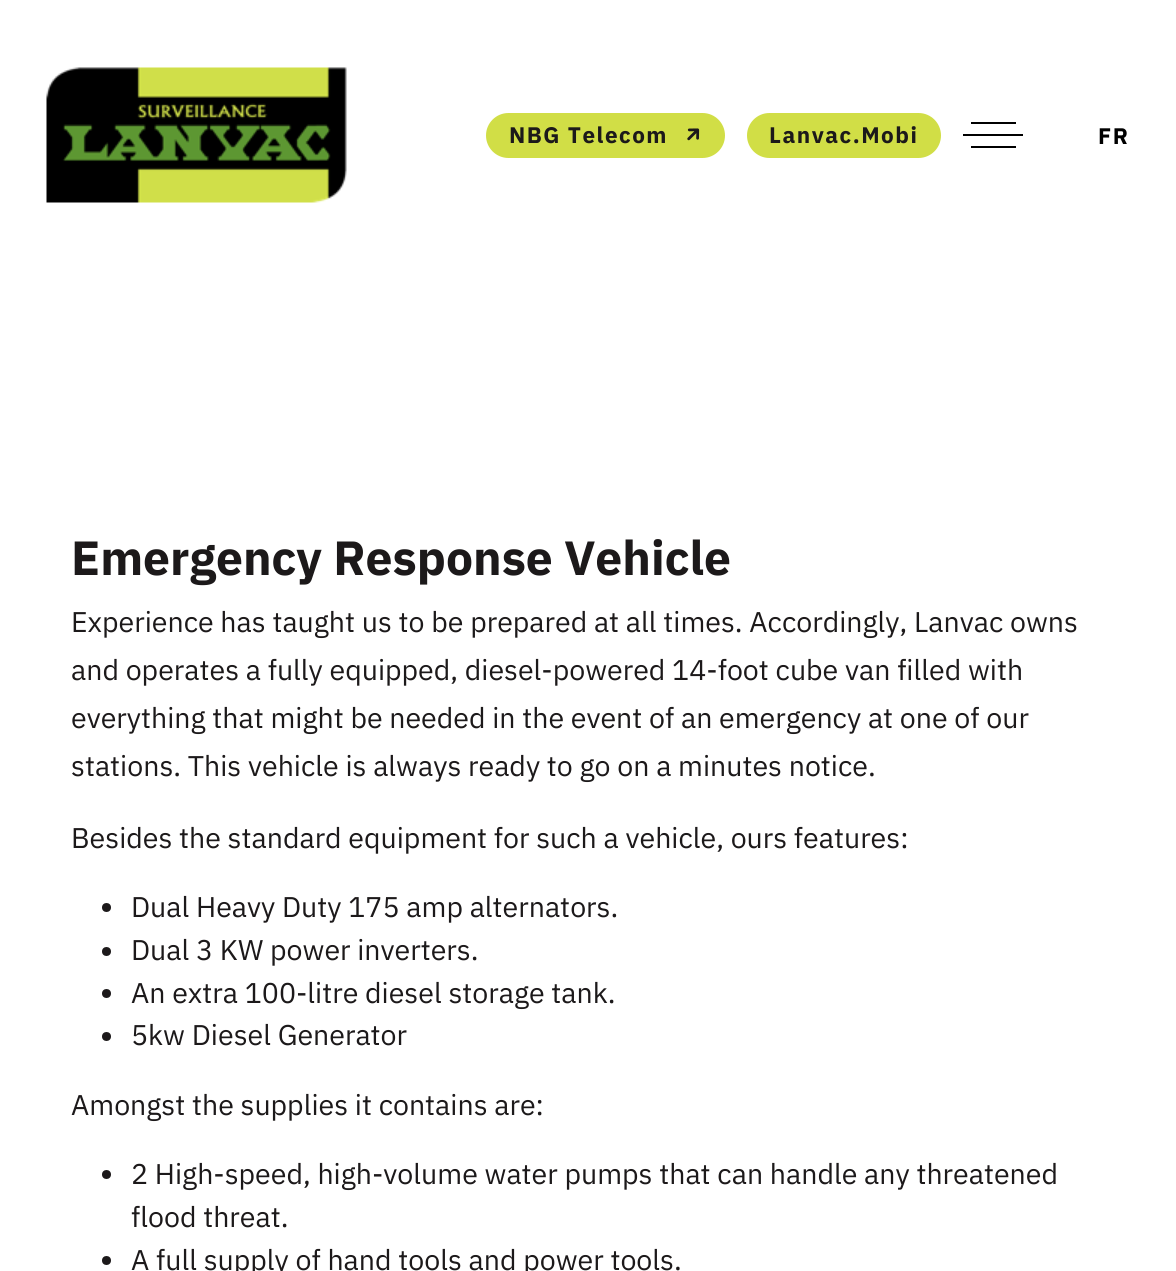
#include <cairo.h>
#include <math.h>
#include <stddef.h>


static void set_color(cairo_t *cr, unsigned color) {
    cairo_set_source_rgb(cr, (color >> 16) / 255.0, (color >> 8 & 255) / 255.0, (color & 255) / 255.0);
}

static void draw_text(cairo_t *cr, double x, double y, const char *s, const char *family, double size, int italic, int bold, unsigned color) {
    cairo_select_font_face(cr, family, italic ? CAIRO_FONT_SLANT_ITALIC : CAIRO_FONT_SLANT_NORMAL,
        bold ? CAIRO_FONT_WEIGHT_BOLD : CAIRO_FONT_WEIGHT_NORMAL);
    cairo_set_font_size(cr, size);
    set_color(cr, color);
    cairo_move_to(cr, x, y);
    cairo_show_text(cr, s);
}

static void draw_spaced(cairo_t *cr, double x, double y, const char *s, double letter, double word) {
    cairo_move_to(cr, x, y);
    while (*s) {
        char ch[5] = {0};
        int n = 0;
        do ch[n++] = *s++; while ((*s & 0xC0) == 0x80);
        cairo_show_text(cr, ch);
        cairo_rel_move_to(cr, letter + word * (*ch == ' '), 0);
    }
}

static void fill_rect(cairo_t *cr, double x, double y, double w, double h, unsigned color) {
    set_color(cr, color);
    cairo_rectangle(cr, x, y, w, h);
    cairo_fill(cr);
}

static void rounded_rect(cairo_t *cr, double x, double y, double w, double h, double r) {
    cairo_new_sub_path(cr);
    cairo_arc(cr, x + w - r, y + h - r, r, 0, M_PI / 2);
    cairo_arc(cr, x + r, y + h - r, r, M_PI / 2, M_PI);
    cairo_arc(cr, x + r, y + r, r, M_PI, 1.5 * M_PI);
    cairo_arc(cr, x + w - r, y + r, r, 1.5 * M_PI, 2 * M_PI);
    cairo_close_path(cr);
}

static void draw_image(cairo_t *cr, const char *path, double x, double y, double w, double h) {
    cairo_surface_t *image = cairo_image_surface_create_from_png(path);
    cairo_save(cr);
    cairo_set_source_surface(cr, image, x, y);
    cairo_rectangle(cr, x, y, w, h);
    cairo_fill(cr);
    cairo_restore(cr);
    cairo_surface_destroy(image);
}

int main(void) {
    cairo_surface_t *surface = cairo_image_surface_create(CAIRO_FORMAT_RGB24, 1176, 1271);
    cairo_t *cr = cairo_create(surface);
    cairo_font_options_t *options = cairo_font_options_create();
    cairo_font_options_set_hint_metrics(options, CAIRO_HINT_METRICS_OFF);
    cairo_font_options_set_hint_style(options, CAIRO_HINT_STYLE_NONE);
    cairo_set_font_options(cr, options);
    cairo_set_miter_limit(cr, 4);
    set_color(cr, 0xFFFFFF);
    cairo_paint(cr);
    draw_image(cr, "assets/img1.png", 46, 67, 301, 136);
    set_color(cr, 0xD1DE46);
    rounded_rect(cr, 486, 113, 239, 45, 22.5);
    cairo_fill(cr);
    cairo_select_font_face(cr, "IBM Plex Sans", CAIRO_FONT_SLANT_NORMAL, CAIRO_FONT_WEIGHT_BOLD);
    cairo_set_font_size(cr, 22.5);
    set_color(cr, 0x1C191A);
    draw_spaced(cr, 509, 143, "NBG Telecom", 1.5, 0);
    draw_image(cr, "assets/img2.png", 687, 128, 13, 13);
    set_color(cr, 0xD1DE46);
    rounded_rect(cr, 747, 113, 194, 45, 22.5);
    cairo_fill(cr);
    set_color(cr, 0x1C191A);
    draw_spaced(cr, 769, 143, "Lanvac.Mobi", 1.5, 0);
    fill_rect(cr, 971, 122, 45, 2, 0x000000);
    fill_rect(cr, 963, 134, 60, 2, 0x000000);
    fill_rect(cr, 971, 146, 45, 2, 0x000000);
    draw_spaced(cr, 1098, 144, "FR", 1.5, 0);
    draw_text(cr, 71, 575, "Emergency Response Vehicle", "IBM Plex Sans", 48, 0, 1, 0x1C191A);
    draw_text(cr, 71, 632, "Experience has taught us to be prepared at all times. Accordingly, Lanvac owns", "IBM Plex Sans", 28.5, 0, 0, 0x1C191A);
    draw_text(cr, 71, 680, "and operates a fully equipped, diesel-powered 14-foot cube van filled with", "IBM Plex Sans", 28.5, 0, 0, 0x1C191A);
    draw_text(cr, 71, 728, "everything that might be needed in the event of an emergency at one of our", "IBM Plex Sans", 28.5, 0, 0, 0x1C191A);
    draw_text(cr, 71, 776, "stations. This vehicle is always ready to go on a minutes notice.", "IBM Plex Sans", 28.5, 0, 0, 0x1C191A);
    draw_text(cr, 71, 848, "Besides the standard equipment for such a vehicle, ours features:", "IBM Plex Sans", 28.5, 0, 0, 0x1C191A);
    cairo_new_path(cr);
    cairo_arc(cr, 106.5, 907.5, 4.5, 0, 2 * M_PI);
    cairo_fill(cr);
    draw_text(cr, 131, 917, "Dual Heavy Duty 175 amp alternators.", "IBM Plex Sans", 28.5, 0, 0, 0x1C191A);
    cairo_new_path(cr);
    cairo_arc(cr, 106.5, 951.5, 4.5, 0, 2 * M_PI);
    cairo_fill(cr);
    draw_text(cr, 131, 960, "Dual 3 KW power inverters.", "IBM Plex Sans", 28.5, 0, 0, 0x1C191A);
    cairo_new_path(cr);
    cairo_arc(cr, 106.5, 993.5, 4.5, 0, 2 * M_PI);
    cairo_fill(cr);
    draw_text(cr, 131, 1003, "An extra 100-litre diesel storage tank.", "IBM Plex Sans", 28.5, 0, 0, 0x1C191A);
    cairo_new_path(cr);
    cairo_arc(cr, 106.5, 1036.5, 4.5, 0, 2 * M_PI);
    cairo_fill(cr);
    draw_text(cr, 131, 1045, "5kw Diesel Generator", "IBM Plex Sans", 28.5, 0, 0, 0x1C191A);
    draw_text(cr, 71, 1115, "Amongst the supplies it contains are:", "IBM Plex Sans", 28.5, 0, 0, 0x1C191A);
    cairo_new_path(cr);
    cairo_arc(cr, 106.5, 1174.5, 4.5, 0, 2 * M_PI);
    cairo_fill(cr);
    draw_text(cr, 131, 1184, "2 High-speed, high-volume water pumps that can handle any threatened", "IBM Plex Sans", 28.5, 0, 0, 0x1C191A);
    draw_text(cr, 131, 1227, "flood threat.", "IBM Plex Sans", 28.5, 0, 0, 0x1C191A);
    cairo_new_path(cr);
    cairo_arc(cr, 106.5, 1260.5, 4.5, 0, 2 * M_PI);
    cairo_fill(cr);
    draw_text(cr, 131, 1270, "A full supply of hand tools and power tools.", "IBM Plex Sans", 28.5, 0, 0, 0x1C191A);
    cairo_surface_write_to_png(surface, "output.png");
    cairo_font_options_destroy(options);
    cairo_destroy(cr);
    cairo_surface_destroy(surface);
    return 0;
}
